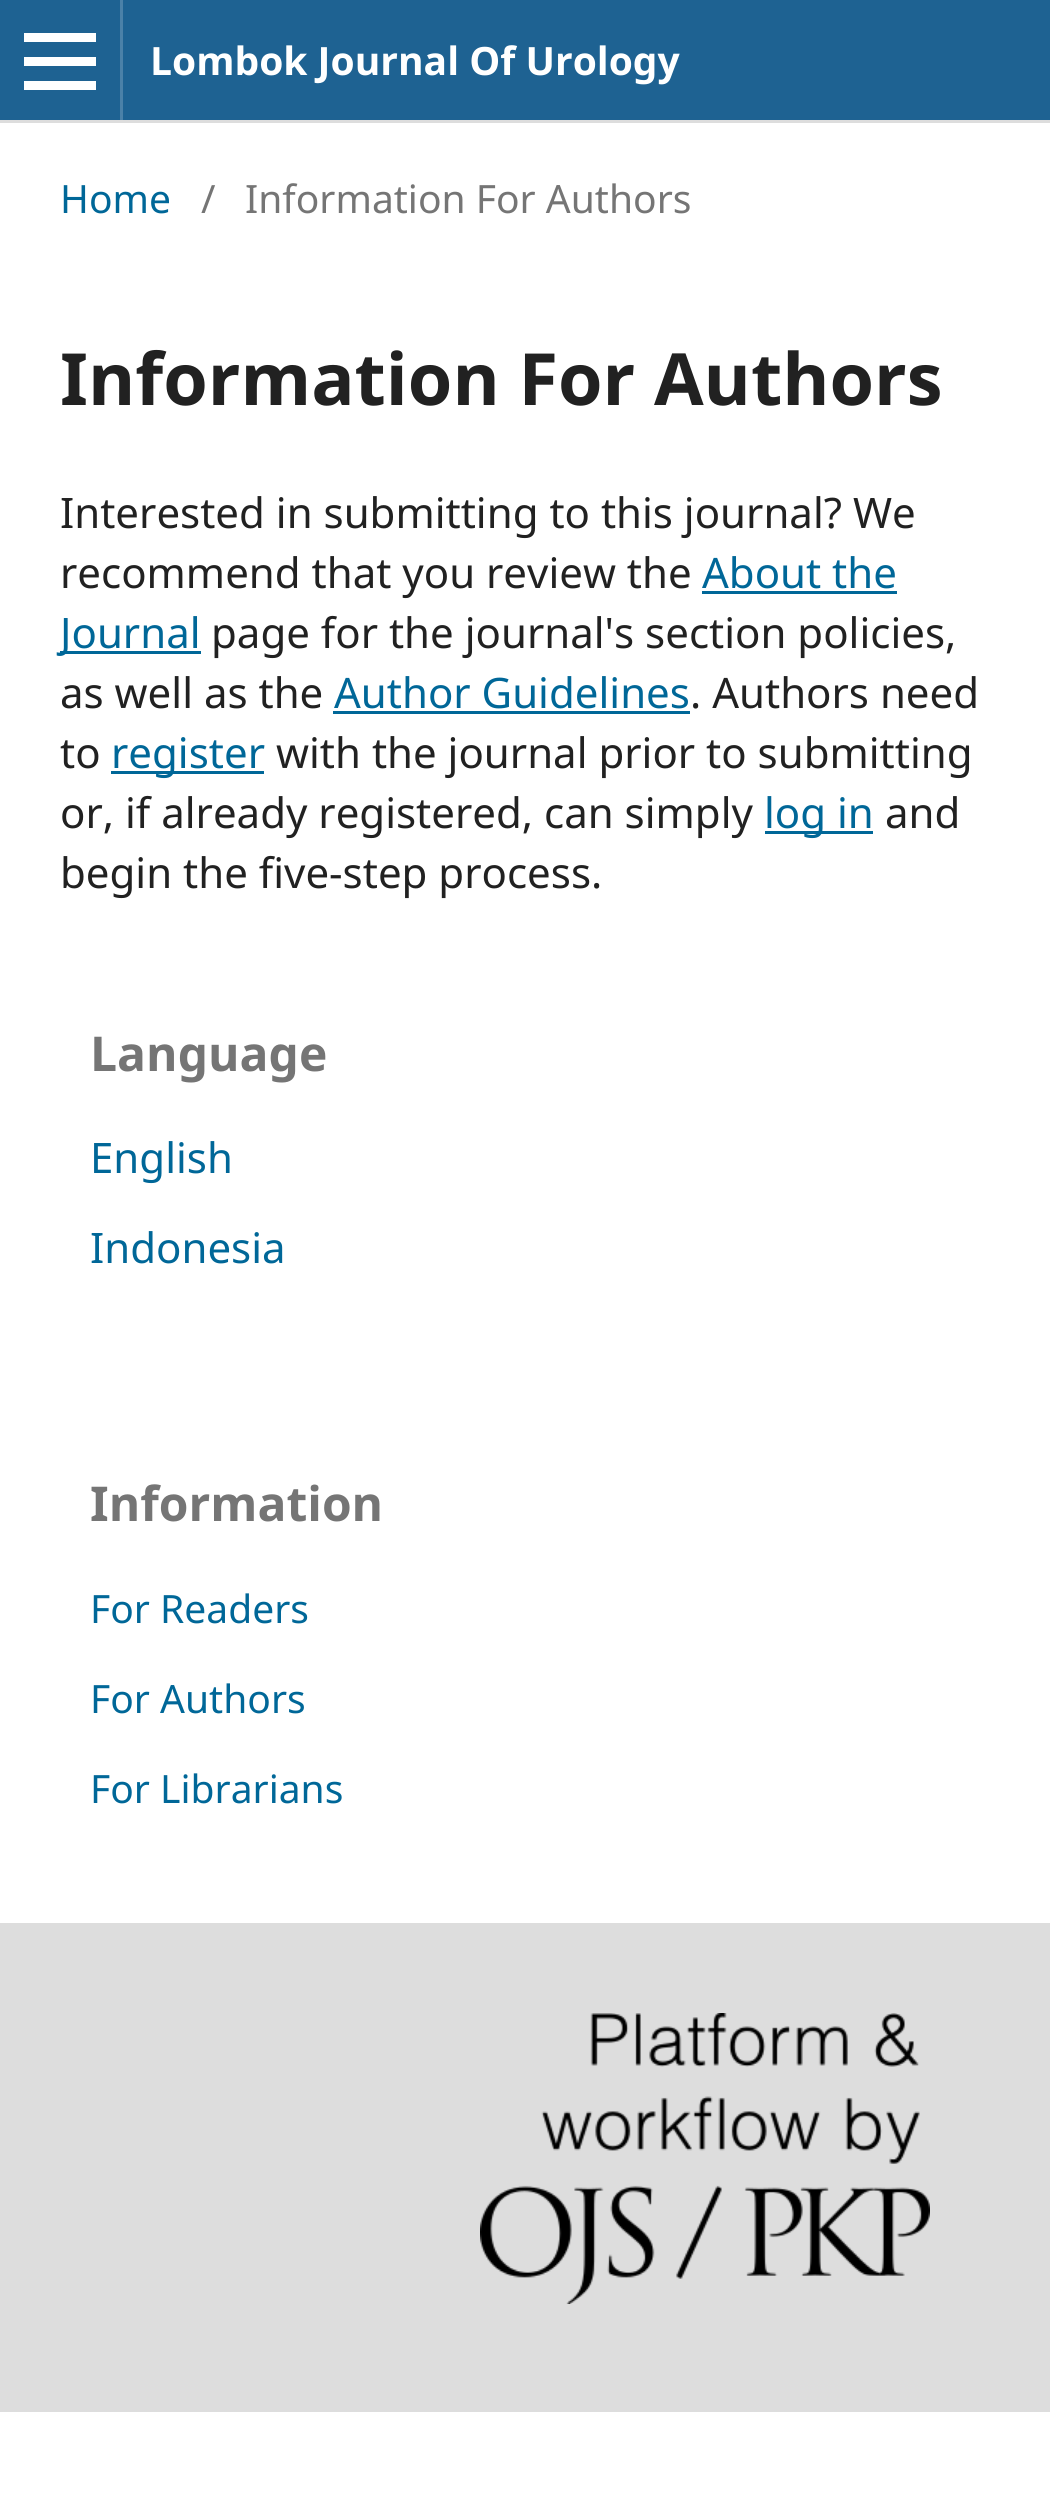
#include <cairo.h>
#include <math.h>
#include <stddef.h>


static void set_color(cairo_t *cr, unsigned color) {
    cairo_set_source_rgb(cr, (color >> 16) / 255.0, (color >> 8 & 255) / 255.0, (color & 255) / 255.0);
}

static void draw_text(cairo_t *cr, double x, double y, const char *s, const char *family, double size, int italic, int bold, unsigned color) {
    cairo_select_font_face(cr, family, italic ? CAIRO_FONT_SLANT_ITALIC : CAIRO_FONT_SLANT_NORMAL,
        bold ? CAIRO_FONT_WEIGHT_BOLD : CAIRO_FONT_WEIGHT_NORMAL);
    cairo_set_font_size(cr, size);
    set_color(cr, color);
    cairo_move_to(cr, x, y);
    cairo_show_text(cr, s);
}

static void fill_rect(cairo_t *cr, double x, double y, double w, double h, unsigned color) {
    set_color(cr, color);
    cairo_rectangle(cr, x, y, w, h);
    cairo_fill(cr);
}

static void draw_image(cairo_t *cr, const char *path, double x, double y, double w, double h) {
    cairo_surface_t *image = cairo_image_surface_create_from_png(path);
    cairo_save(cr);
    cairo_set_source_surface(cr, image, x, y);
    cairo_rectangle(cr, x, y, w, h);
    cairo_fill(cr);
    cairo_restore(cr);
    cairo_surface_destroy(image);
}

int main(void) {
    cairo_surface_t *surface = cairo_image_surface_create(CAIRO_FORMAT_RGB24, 1050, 2500);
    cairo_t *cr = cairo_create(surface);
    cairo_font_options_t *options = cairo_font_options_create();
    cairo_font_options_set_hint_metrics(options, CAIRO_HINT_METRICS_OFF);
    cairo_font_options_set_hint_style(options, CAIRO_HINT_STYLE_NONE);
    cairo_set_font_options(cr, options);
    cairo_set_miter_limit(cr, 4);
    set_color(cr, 0xFFFFFF);
    cairo_paint(cr);
    fill_rect(cr, 0, 0, 1050, 120, 0x1E6292);
    fill_rect(cr, 0, 120, 1050, 3, 0xDDDDDD);
    fill_rect(cr, 120, 0, 3, 120, 0x4B81A8);
    fill_rect(cr, 24, 81, 72, 9, 0xFFFFFF);
    fill_rect(cr, 24, 33, 72, 9, 0xFFFFFF);
    fill_rect(cr, 24, 57, 72, 9, 0xFFFFFF);
    draw_text(cr, 150, 75, "Lombok Journal Of Urology", "Noto Sans", 39, 0, 1, 0xFFFFFF);
    draw_text(cr, 60, 213, "Home", "Noto Sans", 39, 0, 0, 0x006798);
    draw_text(cr, 201, 213, "/", "Noto Sans", 39, 0, 0, 0x757575);
    draw_text(cr, 245, 213, "Information For Authors", "Noto Sans", 39, 0, 0, 0x757575);
    draw_text(cr, 60, 405, "Information For Authors", "Noto Sans", 72, 0, 1, 0x212121);
    draw_text(cr, 60, 528, "Interested in submitting to this journal? We", "Noto Sans", 42, 0, 0, 0x212121);
    draw_text(cr, 60, 588, "recommend that you review the", "Noto Sans", 42, 0, 0, 0x212121);
    draw_text(cr, 702, 588, "About the", "Noto Sans", 42, 0, 0, 0x006798);
    fill_rect(cr, 702, 591, 195, 3, 0x006798);
    fill_rect(cr, 60, 651, 141, 3, 0x006798);
    draw_text(cr, 60, 648, "Journal", "Noto Sans", 42, 0, 0, 0x006798);
    draw_text(cr, 211, 648, "page for the journal's section policies,", "Noto Sans", 42, 0, 0, 0x212121);
    draw_text(cr, 60, 708, "as well as the", "Noto Sans", 42, 0, 0, 0x212121);
    draw_text(cr, 334, 708, "Author Guidelines", "Noto Sans", 42, 0, 0, 0x006798);
    fill_rect(cr, 333, 711, 357, 3, 0x006798);
    draw_text(cr, 690, 708, ". Authors need", "Noto Sans", 42, 0, 0, 0x212121);
    draw_text(cr, 60, 768, "to", "Noto Sans", 42, 0, 0, 0x212121);
    fill_rect(cr, 111, 771, 153, 3, 0x006798);
    draw_text(cr, 111, 768, "register", "Noto Sans", 42, 0, 0, 0x006798);
    draw_text(cr, 276, 768, "with the journal prior to submitting", "Noto Sans", 42, 0, 0, 0x212121);
    draw_text(cr, 60, 828, "or, if already registered, can simply", "Noto Sans", 42, 0, 0, 0x212121);
    fill_rect(cr, 765, 831, 108, 3, 0x006798);
    draw_text(cr, 764, 828, "log in", "Noto Sans", 42, 0, 0, 0x006798);
    draw_text(cr, 885, 828, "and", "Noto Sans", 42, 0, 0, 0x212121);
    draw_text(cr, 60, 888, "begin the five-step process.", "Noto Sans", 42, 0, 0, 0x212121);
    draw_text(cr, 90, 1071, "Language", "Noto Sans", 48, 0, 1, 0x757575);
    draw_text(cr, 90, 1173, "English", "Noto Sans", 42, 0, 0, 0x006798);
    draw_text(cr, 90, 1263, "Indonesia", "Noto Sans", 42, 0, 0, 0x006798);
    draw_text(cr, 90, 1521, "Information", "Noto Sans", 48, 0, 1, 0x757575);
    draw_text(cr, 90, 1623, "For Readers", "Noto Sans", 39, 0, 0, 0x006798);
    draw_text(cr, 90, 1713, "For Authors", "Noto Sans", 39, 0, 0, 0x006798);
    draw_text(cr, 90, 1803, "For Librarians", "Noto Sans", 39, 0, 0, 0x006798);
    fill_rect(cr, 0, 1923, 1050, 489, 0xDDDDDD);
    draw_image(cr, "assets/img1.png", 480, 2013, 450, 291);
    cairo_surface_write_to_png(surface, "output.png");
    cairo_font_options_destroy(options);
    cairo_destroy(cr);
    cairo_surface_destroy(surface);
    return 0;
}
